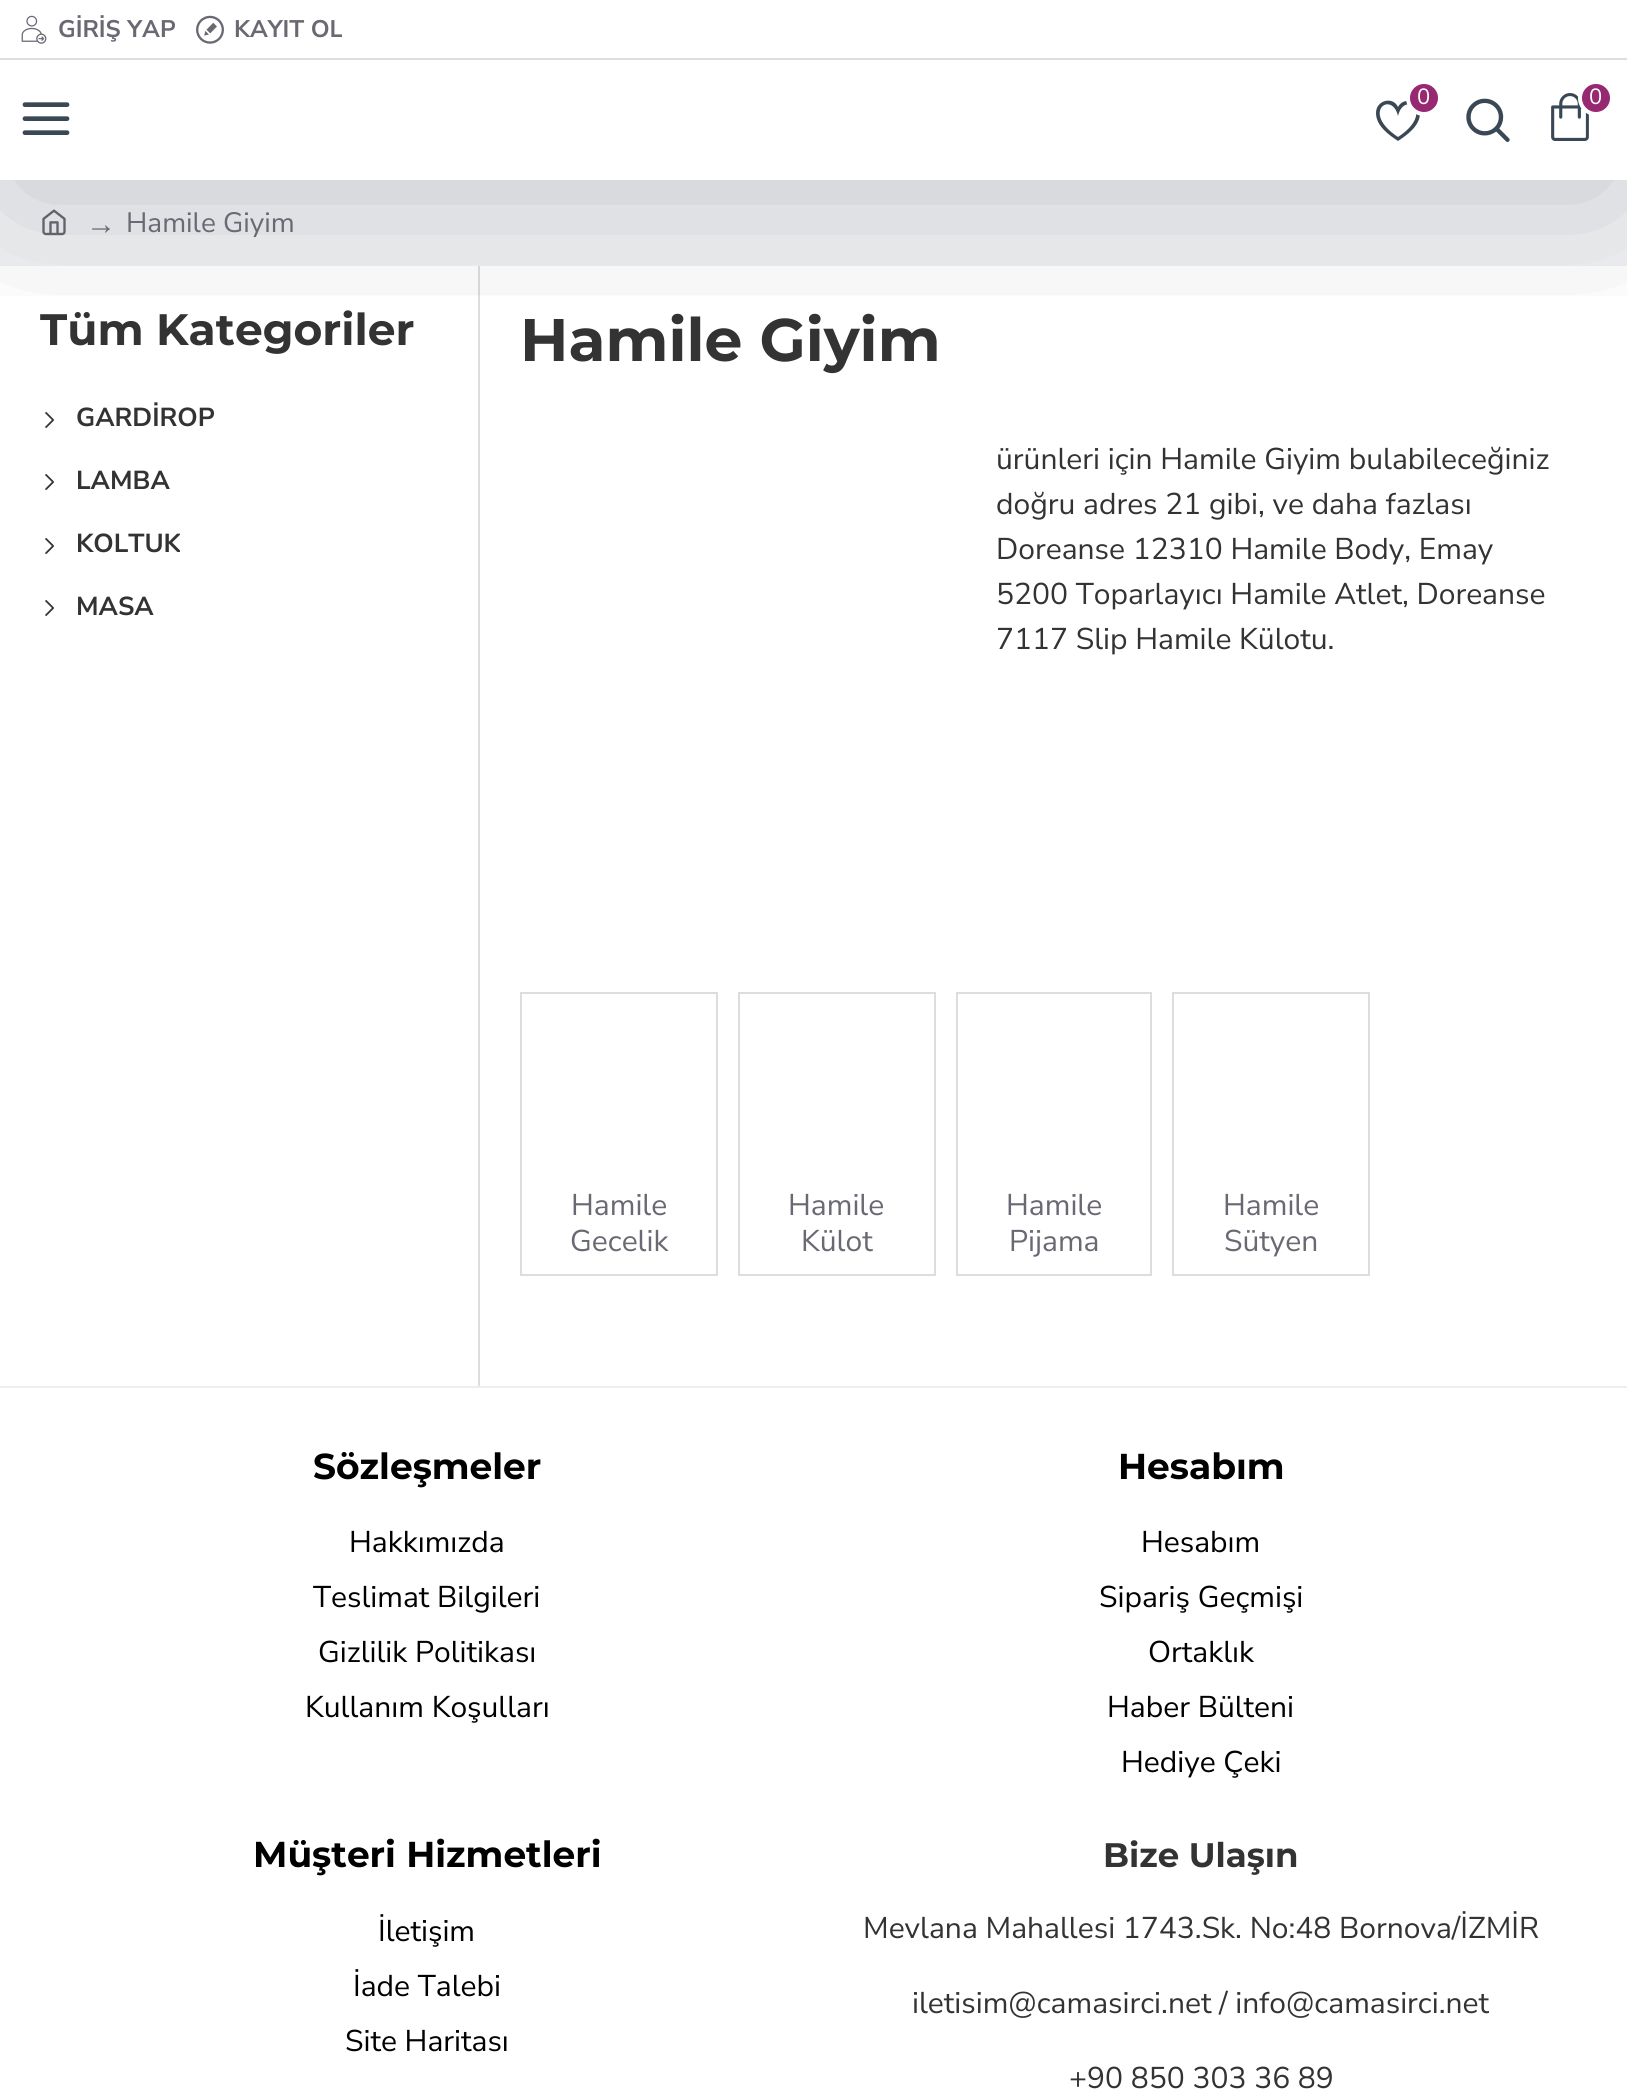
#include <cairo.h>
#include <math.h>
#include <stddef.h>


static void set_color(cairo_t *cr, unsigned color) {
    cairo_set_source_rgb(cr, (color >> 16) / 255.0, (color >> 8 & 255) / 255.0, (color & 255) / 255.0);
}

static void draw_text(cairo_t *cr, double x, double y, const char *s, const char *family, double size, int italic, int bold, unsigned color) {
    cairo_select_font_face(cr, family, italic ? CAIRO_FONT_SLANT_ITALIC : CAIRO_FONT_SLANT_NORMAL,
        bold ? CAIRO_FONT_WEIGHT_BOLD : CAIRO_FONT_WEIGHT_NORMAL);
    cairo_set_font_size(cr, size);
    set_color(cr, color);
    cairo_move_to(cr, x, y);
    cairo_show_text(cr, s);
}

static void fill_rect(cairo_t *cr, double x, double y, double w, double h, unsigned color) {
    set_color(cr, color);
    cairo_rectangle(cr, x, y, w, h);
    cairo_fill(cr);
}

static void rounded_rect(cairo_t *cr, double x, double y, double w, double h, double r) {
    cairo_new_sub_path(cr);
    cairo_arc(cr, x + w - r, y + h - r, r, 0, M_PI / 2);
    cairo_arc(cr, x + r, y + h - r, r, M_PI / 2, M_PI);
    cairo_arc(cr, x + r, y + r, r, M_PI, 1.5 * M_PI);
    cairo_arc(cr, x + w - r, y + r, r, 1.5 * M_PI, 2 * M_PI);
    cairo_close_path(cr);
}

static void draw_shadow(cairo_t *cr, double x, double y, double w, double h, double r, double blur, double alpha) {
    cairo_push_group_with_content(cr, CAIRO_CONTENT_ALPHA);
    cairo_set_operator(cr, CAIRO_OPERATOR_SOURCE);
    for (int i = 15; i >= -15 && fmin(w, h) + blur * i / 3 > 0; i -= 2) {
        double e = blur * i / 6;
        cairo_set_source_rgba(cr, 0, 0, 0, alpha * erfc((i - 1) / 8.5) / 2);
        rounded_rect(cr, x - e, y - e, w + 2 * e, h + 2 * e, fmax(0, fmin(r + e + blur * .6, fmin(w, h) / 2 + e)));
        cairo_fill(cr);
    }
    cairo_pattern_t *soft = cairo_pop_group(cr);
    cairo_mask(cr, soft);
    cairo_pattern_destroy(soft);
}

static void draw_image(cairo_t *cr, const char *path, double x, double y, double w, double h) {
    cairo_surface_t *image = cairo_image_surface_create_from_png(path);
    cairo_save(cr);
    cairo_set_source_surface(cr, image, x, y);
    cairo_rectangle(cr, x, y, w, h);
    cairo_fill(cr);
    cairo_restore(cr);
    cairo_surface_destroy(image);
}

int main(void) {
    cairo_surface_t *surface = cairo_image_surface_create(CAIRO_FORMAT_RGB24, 1627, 2100);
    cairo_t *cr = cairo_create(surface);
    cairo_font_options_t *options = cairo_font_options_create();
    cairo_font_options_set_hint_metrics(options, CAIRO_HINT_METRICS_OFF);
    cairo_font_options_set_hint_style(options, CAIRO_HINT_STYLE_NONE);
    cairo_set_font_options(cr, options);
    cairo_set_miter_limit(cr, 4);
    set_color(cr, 0xFFFFFF);
    cairo_paint(cr);
    fill_rect(cr, 0, 180, 1627, 86, 0xF0F2F5);
    draw_image(cr, "assets/img6.png", 42, 209, 24, 27);
    fill_rect(cr, 478, 266, 2, 1120, 0xDDDDDD);
    draw_image(cr, "assets/img7.png", 45, 412, 9, 16);
    cairo_save(cr);
    cairo_rectangle(cr, 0, 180, 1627, 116);
    cairo_clip(cr);
    set_color(cr, 0x000000);
    draw_shadow(cr, 20, 110, 1588, 80, 0, 90, 0.2);
    cairo_restore(cr);
    fill_rect(cr, 0, 0, 1627, 58, 0xFFFFFF);
    fill_rect(cr, 0, 58, 1627, 2, 0xDDDDDD);
    draw_image(cr, "assets/img1.png", 21, 15, 26, 29);
    draw_text(cr, 58, 37, "GİRİŞ YAP", "Nunito Sans", 24, 0, 1, 0x696973);
    draw_image(cr, "assets/img2.png", 196, 15, 28, 29);
    cairo_save(cr);
    cairo_rectangle(cr, 234, 12, 108, 36);
    cairo_clip(cr);
    draw_text(cr, 234, 37, "KAYIT OL", "Nunito Sans", 24, 0, 1, 0x696973);
    cairo_restore(cr);
    draw_image(cr, "assets/img3.png", 22, 102, 48, 33);
    set_color(cr, 0x3A4754);
    cairo_new_path(cr);
    cairo_move_to(cr, 1398, 116);
    cairo_curve_to(cr, 1404, 90, 1436, 112, 1398, 137);
    cairo_curve_to(cr, 1360, 112, 1392, 90, 1398, 116);
    cairo_close_path(cr);
    cairo_move_to(cr, 1376, 113);
    cairo_curve_to(cr, 1376, 126, 1389, 135, 1398, 141);
    cairo_curve_to(cr, 1407, 135, 1420, 126, 1420, 113);
    cairo_curve_to(cr, 1420, 111, 1419, 108, 1418, 106);
    cairo_curve_to(cr, 1413, 99, 1402, 99, 1398, 107);
    cairo_curve_to(cr, 1393, 96, 1376, 100, 1376, 113);
    cairo_close_path(cr);
    cairo_fill(cr);
    set_color(cr, 0x962972);
    cairo_arc(cr, 1424, 98, 16, 0, 2 * M_PI);
    cairo_fill_preserve(cr);
    set_color(cr, 0xFFFFFF);
    cairo_set_line_width(cr, 4);
    cairo_stroke(cr);
    draw_text(cr, 1417, 104, "0", "Nunito Sans", 22, 0, 0, 0xFFFFFF);
    draw_image(cr, "assets/img4.png", 1466, 98, 44, 44);
    draw_image(cr, "assets/img5.png", 1551, 93, 38, 48);
    set_color(cr, 0x962972);
    cairo_arc(cr, 1596, 98, 16, 0, 2 * M_PI);
    cairo_fill_preserve(cr);
    set_color(cr, 0xFFFFFF);
    cairo_stroke(cr);
    draw_text(cr, 1589, 104, "0", "Nunito Sans", 22, 0, 0, 0xFFFFFF);
    draw_text(cr, 86, 234, "→", "Liberation Serif", 30, 0, 0, 0x696973);
    draw_text(cr, 126, 232, "Hamile Giyim", "Nunito Sans", 28, 0, 0, 0x696973);
    draw_text(cr, 40, 345, "Tüm Kategoriler", "Montserrat", 44, 0, 1, 0x333333);
    draw_text(cr, 76, 426, "GARDİROP", "Nunito Sans", 26, 0, 1, 0x333333);
    draw_image(cr, "assets/img7.png", 45, 474, 9, 16);
    draw_text(cr, 76, 489, "LAMBA", "Nunito Sans", 26, 0, 1, 0x333333);
    draw_image(cr, "assets/img7.png", 45, 538, 9, 16);
    cairo_save(cr);
    cairo_rectangle(cr, 76, 526, 104, 38);
    cairo_clip(cr);
    draw_text(cr, 76, 552, "KOLTUK", "Nunito Sans", 26, 0, 1, 0x333333);
    cairo_restore(cr);
    draw_image(cr, "assets/img7.png", 45, 600, 9, 16);
    draw_text(cr, 76, 615, "MASA", "Nunito Sans", 26, 0, 1, 0x333333);
    draw_text(cr, 520, 361, "Hamile Giyim", "Montserrat", 60, 0, 1, 0x333333);
    draw_text(cr, 996, 469, "ürünleri için Hamile Giyim bulabileceğiniz", "Nunito Sans", 30, 0, 0, 0x333333);
    draw_text(cr, 996, 514, "doğru adres 21 gibi, ve daha fazlası", "Nunito Sans", 30, 0, 0, 0x333333);
    draw_text(cr, 996, 559, "Doreanse 12310 Hamile Body, Emay", "Nunito Sans", 30, 0, 0, 0x333333);
    draw_text(cr, 996, 604, "5200 Toparlayıcı Hamile Atlet, Doreanse", "Nunito Sans", 30, 0, 0, 0x333333);
    draw_text(cr, 996, 649, "7117 Slip Hamile Külotu.", "Nunito Sans", 30, 0, 0, 0x333333);
    cairo_rectangle(cr, 521, 993, 196, 282);
    set_color(cr, 0xDDDDDD);
    cairo_set_line_width(cr, 2);
    cairo_stroke(cr);
    draw_text(cr, 571, 1215, "Hamile", "Nunito Sans", 30, 0, 0, 0x696973);
    draw_text(cr, 570, 1251, "Gecelik", "Nunito Sans", 30, 0, 0, 0x696973);
    cairo_rectangle(cr, 739, 993, 196, 282);
    set_color(cr, 0xDDDDDD);
    cairo_stroke(cr);
    draw_text(cr, 788, 1215, "Hamile", "Nunito Sans", 30, 0, 0, 0x696973);
    draw_text(cr, 801, 1251, "Külot", "Nunito Sans", 30, 0, 0, 0x696973);
    cairo_rectangle(cr, 957, 993, 194, 282);
    set_color(cr, 0xDDDDDD);
    cairo_stroke(cr);
    draw_text(cr, 1006, 1215, "Hamile", "Nunito Sans", 30, 0, 0, 0x696973);
    draw_text(cr, 1009, 1251, "Pijama", "Nunito Sans", 30, 0, 0, 0x696973);
    cairo_rectangle(cr, 1173, 993, 196, 282);
    set_color(cr, 0xDDDDDD);
    cairo_stroke(cr);
    draw_text(cr, 1223, 1215, "Hamile", "Nunito Sans", 30, 0, 0, 0x696973);
    draw_text(cr, 1224, 1251, "Sütyen", "Nunito Sans", 30, 0, 0, 0x696973);
    fill_rect(cr, 0, 1386, 1627, 2, 0xEEEEEE);
    draw_text(cr, 313, 1479, "Sözleşmeler", "Montserrat", 36, 0, 1, 0x000000);
    draw_text(cr, 349, 1552, "Hakkımızda", "Nunito Sans", 30, 0, 0, 0x000000);
    draw_text(cr, 313, 1607, "Teslimat Bilgileri", "Nunito Sans", 30, 0, 0, 0x000000);
    draw_text(cr, 318, 1662, "Gizlilik Politikası", "Nunito Sans", 30, 0, 0, 0x000000);
    draw_text(cr, 305, 1717, "Kullanım Koşulları", "Nunito Sans", 30, 0, 0, 0x000000);
    draw_text(cr, 1118, 1479, "Hesabım", "Montserrat", 36, 0, 1, 0x000000);
    draw_text(cr, 1141, 1552, "Hesabım", "Nunito Sans", 30, 0, 0, 0x000000);
    draw_text(cr, 1099, 1607, "Sipariş Geçmişi", "Nunito Sans", 30, 0, 0, 0x000000);
    draw_text(cr, 1148, 1662, "Ortaklık", "Nunito Sans", 30, 0, 0, 0x000000);
    draw_text(cr, 1107, 1717, "Haber Bülteni", "Nunito Sans", 30, 0, 0, 0x000000);
    draw_text(cr, 1121, 1772, "Hediye Çeki", "Nunito Sans", 30, 0, 0, 0x000000);
    draw_text(cr, 253, 1867, "Müşteri Hizmetleri", "Montserrat", 36, 0, 1, 0x000000);
    draw_text(cr, 378, 1941, "İletişim", "Nunito Sans", 30, 0, 0, 0x000000);
    draw_text(cr, 353, 1996, "İade Talebi", "Nunito Sans", 30, 0, 0, 0x000000);
    draw_text(cr, 345, 2051, "Site Haritası", "Nunito Sans", 30, 0, 0, 0x000000);
    draw_text(cr, 1103, 1867, "Bize Ulaşın", "Montserrat", 34, 0, 1, 0x333333);
    draw_text(cr, 863, 1938, "Mevlana Mahallesi 1743.Sk. No:48 Bornova/İZMİR", "Nunito Sans", 30, 0, 0, 0x333333);
    draw_text(cr, 912, 2013, "iletisim@camasirci.net / info@camasirci.net", "Nunito Sans", 30, 0, 0, 0x333333);
    draw_text(cr, 1069, 2088, "+90 850 303 36 89", "Nunito Sans", 30, 0, 0, 0x333333);
    cairo_surface_write_to_png(surface, "output.png");
    cairo_font_options_destroy(options);
    cairo_destroy(cr);
    cairo_surface_destroy(surface);
    return 0;
}
